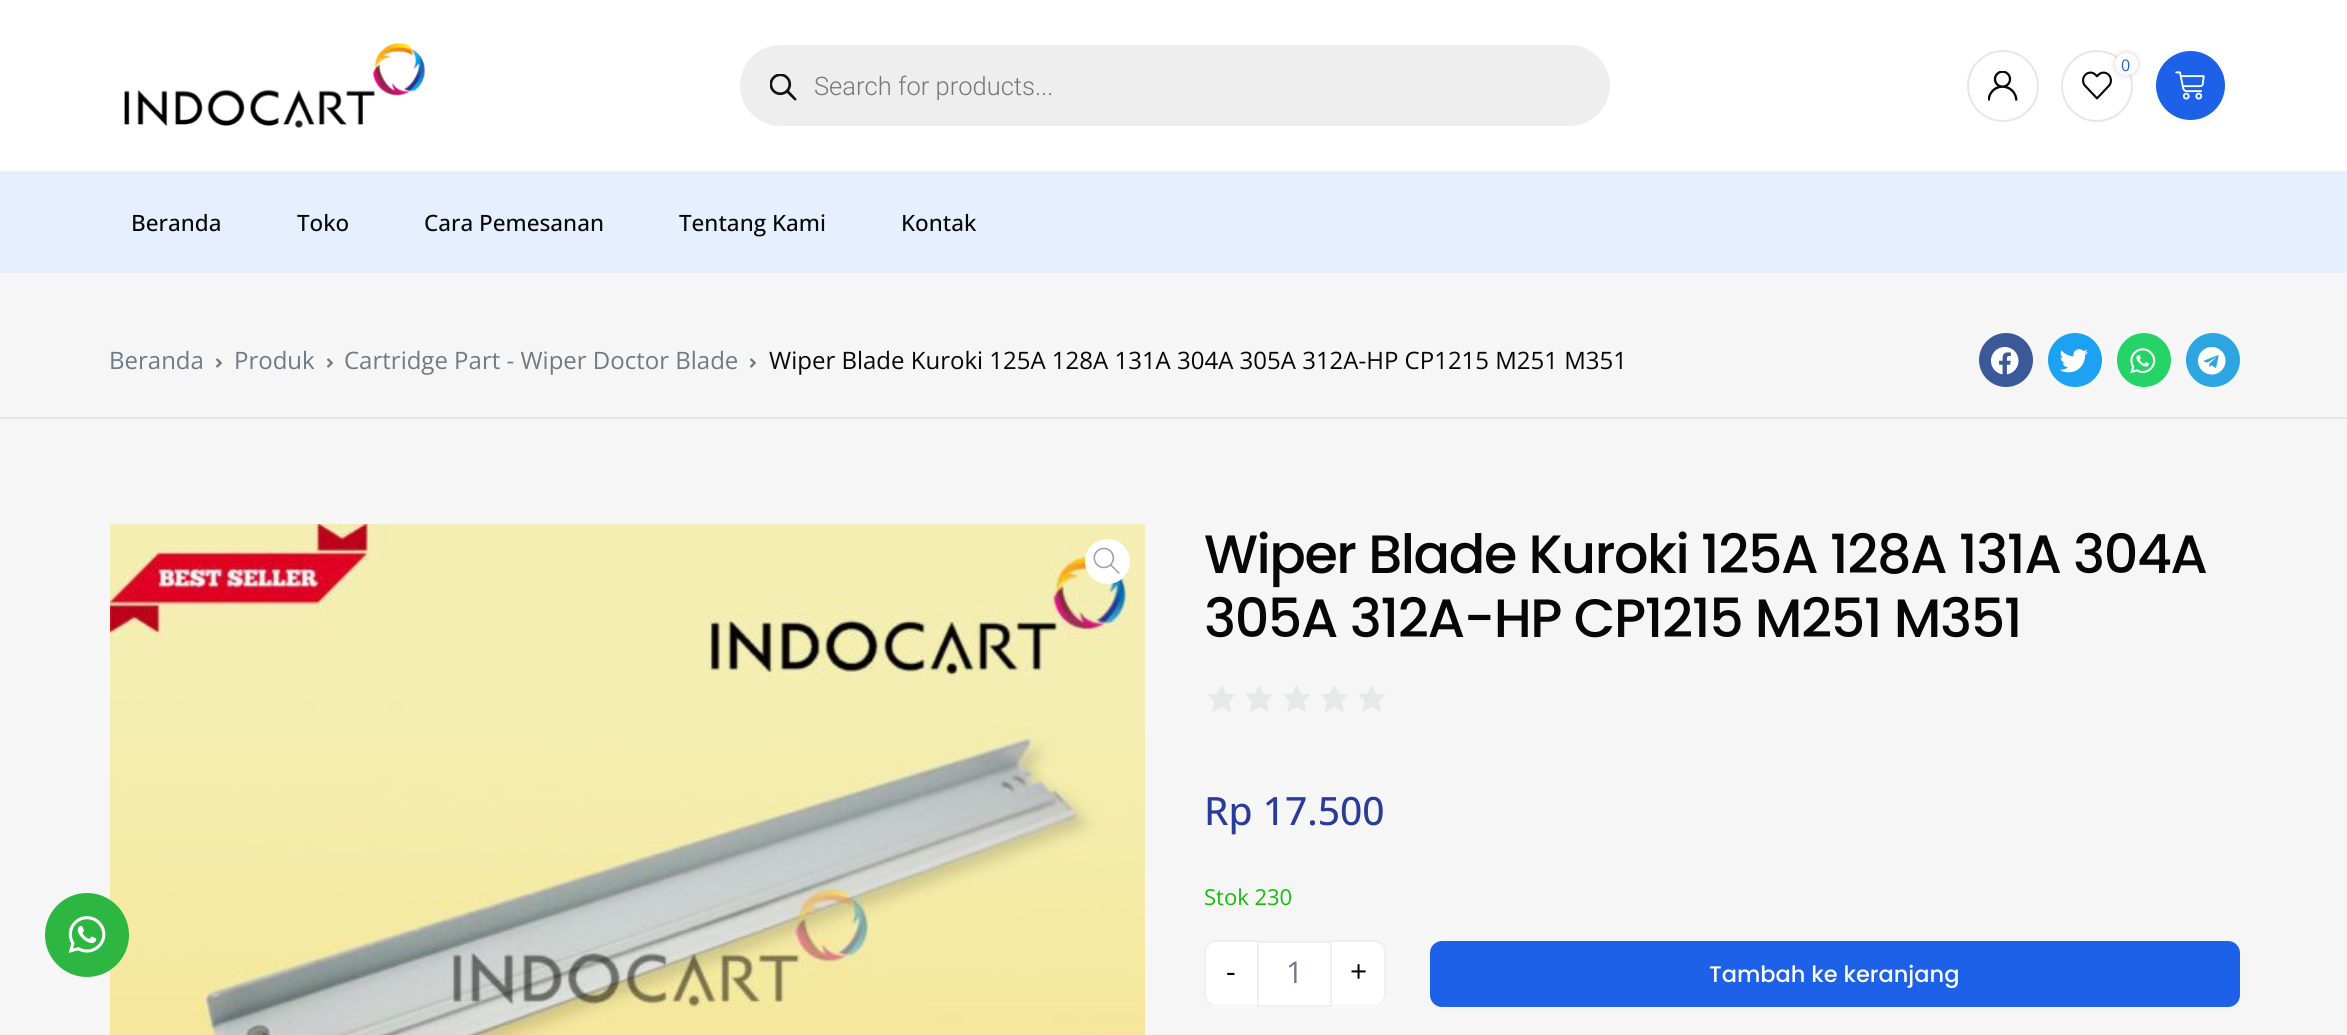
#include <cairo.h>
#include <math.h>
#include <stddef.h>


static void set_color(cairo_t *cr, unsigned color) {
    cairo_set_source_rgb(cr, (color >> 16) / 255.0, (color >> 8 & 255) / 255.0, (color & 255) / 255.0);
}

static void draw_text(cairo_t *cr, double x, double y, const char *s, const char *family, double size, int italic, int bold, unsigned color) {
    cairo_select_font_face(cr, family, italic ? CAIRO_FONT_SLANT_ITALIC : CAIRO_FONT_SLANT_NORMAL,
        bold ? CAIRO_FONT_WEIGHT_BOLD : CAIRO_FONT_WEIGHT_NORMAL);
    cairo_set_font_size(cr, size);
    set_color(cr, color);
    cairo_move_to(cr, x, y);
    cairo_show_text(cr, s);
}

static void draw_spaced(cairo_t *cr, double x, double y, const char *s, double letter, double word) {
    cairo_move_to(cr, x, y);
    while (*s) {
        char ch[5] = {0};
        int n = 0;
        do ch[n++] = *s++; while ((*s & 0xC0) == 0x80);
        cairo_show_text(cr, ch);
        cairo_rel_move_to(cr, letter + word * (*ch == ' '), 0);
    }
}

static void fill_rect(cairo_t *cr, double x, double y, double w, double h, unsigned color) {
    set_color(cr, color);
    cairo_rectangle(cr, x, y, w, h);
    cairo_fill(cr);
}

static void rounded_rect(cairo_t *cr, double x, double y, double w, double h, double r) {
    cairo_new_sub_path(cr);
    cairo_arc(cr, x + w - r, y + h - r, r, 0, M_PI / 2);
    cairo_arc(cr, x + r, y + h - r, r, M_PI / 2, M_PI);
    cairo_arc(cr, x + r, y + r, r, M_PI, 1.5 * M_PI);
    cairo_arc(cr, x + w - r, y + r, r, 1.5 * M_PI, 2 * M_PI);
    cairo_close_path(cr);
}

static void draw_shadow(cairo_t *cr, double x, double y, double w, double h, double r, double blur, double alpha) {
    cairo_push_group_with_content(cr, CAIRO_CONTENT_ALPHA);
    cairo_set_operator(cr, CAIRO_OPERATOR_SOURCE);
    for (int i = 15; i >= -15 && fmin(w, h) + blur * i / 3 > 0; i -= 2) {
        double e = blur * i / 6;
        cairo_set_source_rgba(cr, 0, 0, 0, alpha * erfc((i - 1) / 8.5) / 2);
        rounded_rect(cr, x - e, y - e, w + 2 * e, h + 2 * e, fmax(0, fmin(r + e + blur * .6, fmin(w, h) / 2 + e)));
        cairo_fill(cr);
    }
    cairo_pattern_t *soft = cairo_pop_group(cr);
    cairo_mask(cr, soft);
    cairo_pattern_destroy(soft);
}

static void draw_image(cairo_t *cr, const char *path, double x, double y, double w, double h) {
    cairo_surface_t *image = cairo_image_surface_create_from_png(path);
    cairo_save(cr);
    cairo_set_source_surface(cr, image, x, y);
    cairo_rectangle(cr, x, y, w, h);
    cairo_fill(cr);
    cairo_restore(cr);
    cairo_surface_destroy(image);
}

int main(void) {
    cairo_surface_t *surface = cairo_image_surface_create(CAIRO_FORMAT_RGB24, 2347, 1035);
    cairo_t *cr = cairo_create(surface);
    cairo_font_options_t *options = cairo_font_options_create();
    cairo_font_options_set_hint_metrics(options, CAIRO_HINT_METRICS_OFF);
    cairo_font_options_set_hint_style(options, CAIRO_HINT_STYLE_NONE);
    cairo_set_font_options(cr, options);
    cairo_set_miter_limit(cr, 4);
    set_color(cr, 0xF6F6F6);
    cairo_paint(cr);
    fill_rect(cr, 0, 0, 2347, 171, 0xFFFFFF);
    draw_image(cr, "assets/img1.png", 124, 43, 301, 85);
    cairo_arc(cr, 2003, 86, 35, 0, 2 * M_PI);
    set_color(cr, 0xE7E7E7);
    cairo_stroke(cr);
    draw_image(cr, "assets/img2.png", 1988, 71, 30, 30);
    cairo_arc(cr, 2097, 86, 35, 0, 2 * M_PI);
    cairo_stroke(cr);
    draw_image(cr, "assets/img3.png", 2082, 71, 30, 29);
    set_color(cr, 0x000000);
    draw_shadow(cr, 2115, 53, 23, 22, 11, 3, 0.17);
    set_color(cr, 0xFFFFFF);
    rounded_rect(cr, 2115, 53, 23, 22, 11);
    cairo_fill(cr);
    draw_text(cr, 2121, 71, "0", "Open Sans", 16, 0, 0, 0x1C61E7);
    cairo_new_path(cr);
    cairo_arc(cr, 2190.5, 85.5, 34.5, 0, 2 * M_PI);
    cairo_fill(cr);
    draw_image(cr, "assets/img4.png", 2175, 71, 30, 29);
    set_color(cr, 0xEEEEEE);
    rounded_rect(cr, 740, 45, 870, 81, 40.5);
    cairo_fill(cr);
    draw_image(cr, "assets/img5.png", 770, 74, 27, 27);
    draw_text(cr, 814, 95, "Search for products...", "Roboto Light", 25.5, 0, 0, 0x777777);
    fill_rect(cr, 0, 171, 2347, 102, 0xE6EFFD);
    draw_text(cr, 131, 231, "Beranda", "Open Sans Medium", 22.5, 0, 0, 0x070707);
    draw_text(cr, 297, 231, "Toko", "Open Sans Medium", 22.5, 0, 0, 0x070707);
    draw_text(cr, 424, 231, "Cara Pemesanan", "Open Sans Medium", 22.5, 0, 0, 0x070707);
    draw_text(cr, 679, 231, "Tentang Kami", "Open Sans Medium", 22.5, 0, 0, 0x070707);
    draw_text(cr, 901, 231, "Kontak", "Open Sans Medium", 22.5, 0, 0, 0x070707);
    draw_image(cr, "assets/img12.png", 110, 524, 1035, 511);
    set_color(cr, 0x2DB742);
    cairo_arc(cr, 87, 935, 42, 0, 2 * M_PI);
    cairo_fill(cr);
    draw_image(cr, "assets/img6.png", 68, 916, 38, 37);
    fill_rect(cr, 0, 417, 2347, 2, 0xE7E7E7);
    draw_text(cr, 109, 369, "Beranda", "Open Sans", 24, 0, 0, 0x6E7A84);
    draw_image(cr, "assets/img7.png", 216, 358, 6, 10);
    draw_text(cr, 234, 369, "Produk", "Open Sans", 24, 0, 0, 0x6E7A84);
    draw_image(cr, "assets/img7.png", 327, 358, 6, 10);
    draw_text(cr, 344, 369, "Cartridge Part - Wiper Doctor Blade", "Open Sans", 24, 0, 0, 0x6E7A84);
    draw_image(cr, "assets/img7.png", 750, 358, 6, 10);
    draw_text(cr, 769, 369, "Wiper Blade Kuroki 125A 128A 131A 304A 305A 312A-HP CP1215 M251 M351", "Open Sans", 24, 0, 0, 0x070707);
    set_color(cr, 0x3B5998);
    cairo_new_path(cr);
    cairo_arc(cr, 2006, 360, 27, 0, 2 * M_PI);
    cairo_fill(cr);
    draw_image(cr, "assets/img8.png", 1991, 347, 28, 28);
    set_color(cr, 0x1DA1F2);
    cairo_arc(cr, 2075, 360, 27, 0, 2 * M_PI);
    cairo_fill(cr);
    draw_image(cr, "assets/img9.png", 2060, 349, 28, 24);
    set_color(cr, 0x25D366);
    cairo_arc(cr, 2144, 360, 27, 0, 2 * M_PI);
    cairo_fill(cr);
    draw_image(cr, "assets/img10.png", 2130, 348, 26, 26);
    set_color(cr, 0x2CA5E0);
    cairo_arc(cr, 2213, 360, 27, 0, 2 * M_PI);
    cairo_fill(cr);
    draw_image(cr, "assets/img11.png", 2198, 347, 28, 28);
    set_color(cr, 0xFFFFFF);
    cairo_arc(cr, 1107.5, 561.5, 22.5, 0, 2 * M_PI);
    cairo_fill(cr);
    draw_image(cr, "assets/img13.png", 1093, 547, 27, 27);
    cairo_select_font_face(cr, "Poppins Medium", CAIRO_FONT_SLANT_NORMAL, CAIRO_FONT_WEIGHT_NORMAL);
    cairo_set_font_size(cr, 54);
    set_color(cr, 0x070707);
    draw_spaced(cr, 1204, 573, "Wiper Blade Kuroki 125A 128A 131A 304A", -1.45, 0);
    draw_spaced(cr, 1204, 637, "305A 312A-HP CP1215 M251 M351", -1.45, 0);
    draw_image(cr, "assets/img14.png", 1208, 685, 27, 27);
    draw_image(cr, "assets/img15.png", 1246, 685, 27, 27);
    draw_image(cr, "assets/img14.png", 1283, 685, 27, 27);
    draw_image(cr, "assets/img15.png", 1321, 685, 27, 27);
    draw_image(cr, "assets/img14.png", 1358, 685, 27, 27);
    draw_text(cr, 1204, 825, "Rp 17.500", "Open Sans Medium", 39, 0, 0, 0x293C9B);
    draw_text(cr, 1204, 905, "Stok 230", "Open Sans", 22, 0, 0, 0x16BE0C);
    set_color(cr, 0xFFFFFF);
    cairo_new_path(cr);
    cairo_move_to(cr, 1217, 941);
    cairo_line_to(cr, 1257, 941);
    cairo_line_to(cr, 1257, 1007);
    cairo_line_to(cr, 1217, 1007);
    cairo_curve_to(cr, 1210.5, 1007, 1205, 1001.5, 1205, 995);
    cairo_line_to(cr, 1205, 953);
    cairo_curve_to(cr, 1205, 946.5, 1210.5, 941, 1217, 941);
    cairo_close_path(cr);
    cairo_fill(cr);
    set_color(cr, 0xEFEFEF);
    cairo_set_fill_rule(cr, CAIRO_FILL_RULE_EVEN_ODD);
    cairo_new_path(cr);
    cairo_move_to(cr, 1216, 940);
    cairo_line_to(cr, 1257, 940);
    cairo_line_to(cr, 1257, 1006);
    cairo_line_to(cr, 1216, 1006);
    cairo_curve_to(cr, 1210, 1006, 1204, 1001, 1204, 994);
    cairo_line_to(cr, 1204, 952);
    cairo_curve_to(cr, 1204, 946, 1210, 940, 1216, 940);
    cairo_close_path(cr);
    cairo_move_to(cr, 1216, 942);
    cairo_line_to(cr, 1257, 942);
    cairo_line_to(cr, 1257, 1005);
    cairo_line_to(cr, 1216, 1005);
    cairo_curve_to(cr, 1211, 1005, 1206, 1000, 1206, 994);
    cairo_line_to(cr, 1206, 952);
    cairo_curve_to(cr, 1206, 947, 1211, 942, 1216, 942);
    cairo_close_path(cr);
    cairo_fill(cr);
    draw_text(cr, 1226, 982, "-", "Open Sans", 30, 0, 0, 0x000000);
    set_color(cr, 0xFFFFFF);
    cairo_rectangle(cr, 1258, 942, 73, 64);
    cairo_fill_preserve(cr);
    set_color(cr, 0xEFEFEF);
    cairo_stroke(cr);
    draw_text(cr, 1286, 983, "1", "Open Sans", 30, 0, 0, 0x6E7A84);
    set_color(cr, 0xFFFFFF);
    cairo_new_path(cr);
    cairo_move_to(cr, 1332, 941);
    cairo_line_to(cr, 1374, 941);
    cairo_curve_to(cr, 1380.5, 941, 1386, 946.5, 1386, 953);
    cairo_line_to(cr, 1386, 995);
    cairo_curve_to(cr, 1386, 1001.5, 1380.5, 1007, 1374, 1007);
    cairo_line_to(cr, 1332, 1007);
    cairo_close_path(cr);
    cairo_fill(cr);
    set_color(cr, 0xEFEFEF);
    cairo_new_path(cr);
    cairo_move_to(cr, 1332, 940);
    cairo_line_to(cr, 1374, 940);
    cairo_curve_to(cr, 1381, 940, 1386, 946, 1386, 952);
    cairo_line_to(cr, 1386, 994);
    cairo_curve_to(cr, 1386, 1001, 1381, 1006, 1374, 1006);
    cairo_line_to(cr, 1332, 1006);
    cairo_close_path(cr);
    cairo_move_to(cr, 1332, 942);
    cairo_line_to(cr, 1374, 942);
    cairo_curve_to(cr, 1380, 942, 1384, 947, 1384, 952);
    cairo_line_to(cr, 1384, 994);
    cairo_curve_to(cr, 1384, 1000, 1380, 1005, 1374, 1005);
    cairo_line_to(cr, 1332, 1005);
    cairo_close_path(cr);
    cairo_fill(cr);
    draw_text(cr, 1350, 982, "+", "Open Sans", 30, 0, 0, 0x000000);
    set_color(cr, 0x1C61E7);
    rounded_rect(cr, 1430, 941, 810, 66, 12);
    cairo_fill(cr);
    draw_text(cr, 1709, 982, "Tambah ke keranjang", "Poppins Medium", 22.5, 0, 0, 0xFFFFFF);
    cairo_surface_write_to_png(surface, "output.png");
    cairo_font_options_destroy(options);
    cairo_destroy(cr);
    cairo_surface_destroy(surface);
    return 0;
}
